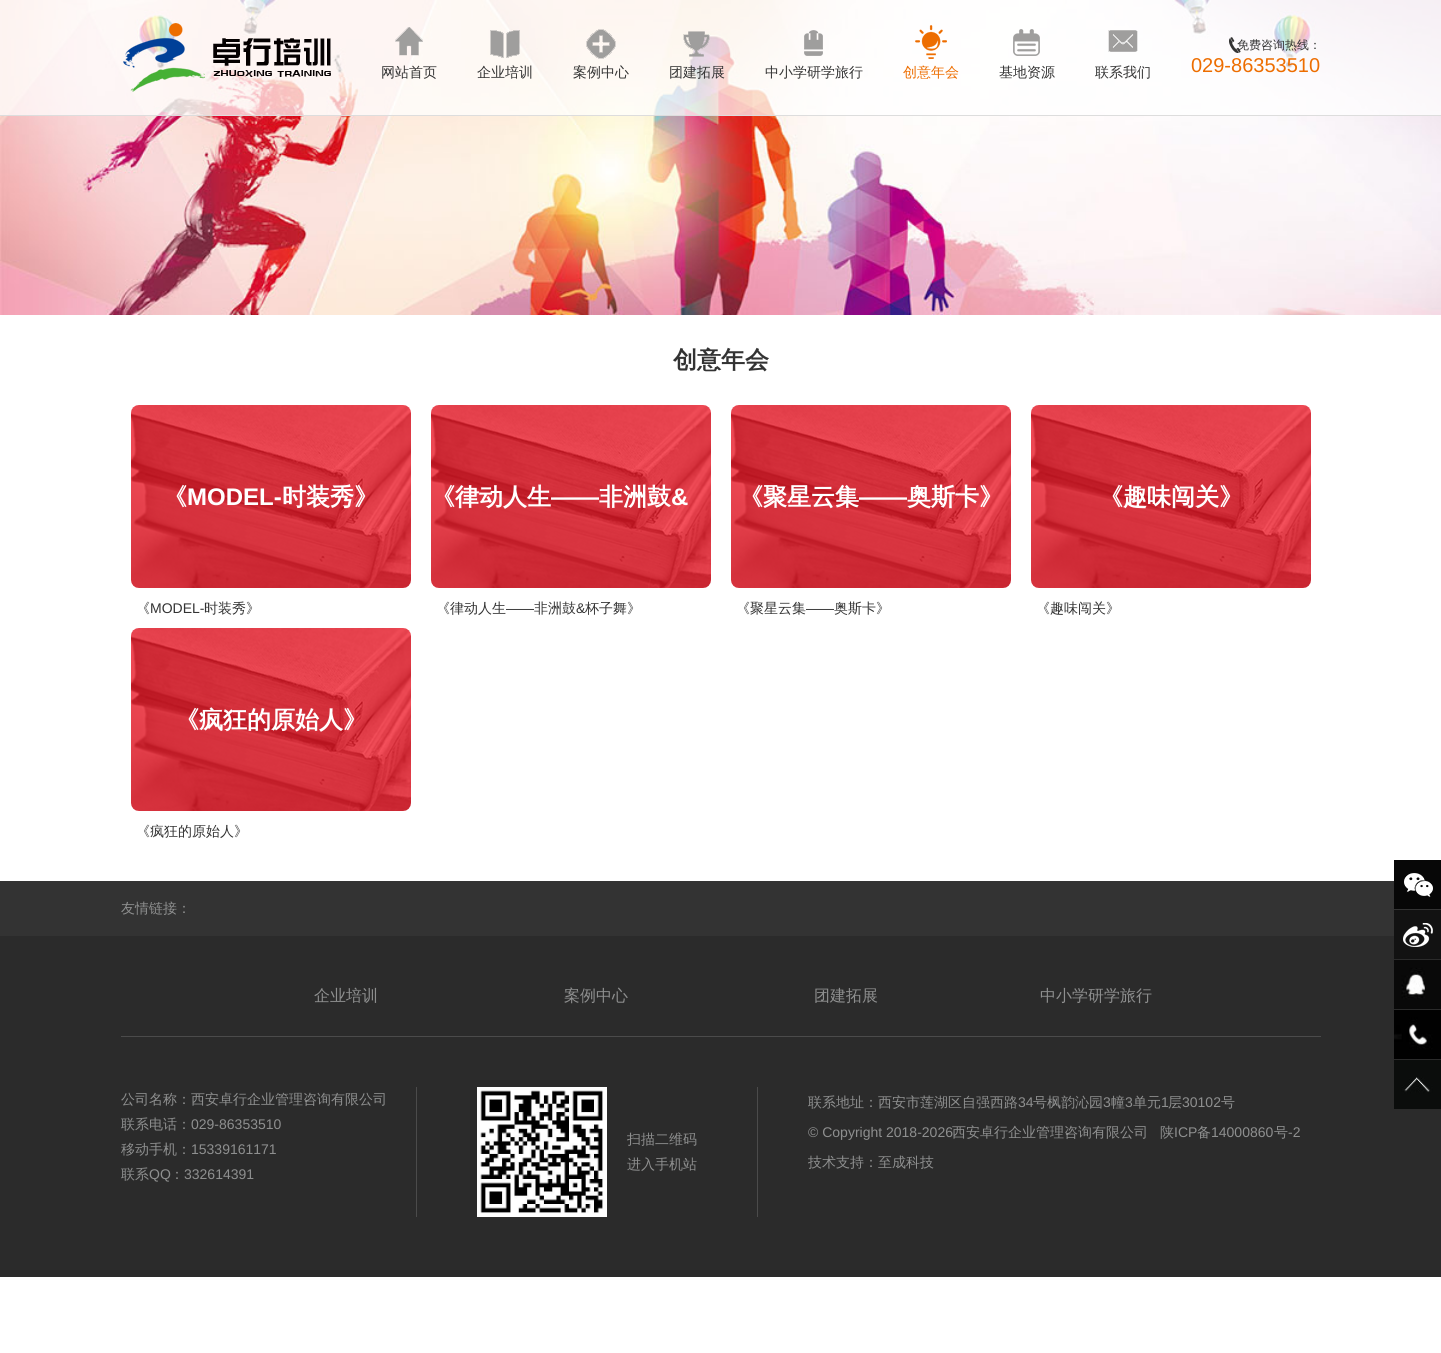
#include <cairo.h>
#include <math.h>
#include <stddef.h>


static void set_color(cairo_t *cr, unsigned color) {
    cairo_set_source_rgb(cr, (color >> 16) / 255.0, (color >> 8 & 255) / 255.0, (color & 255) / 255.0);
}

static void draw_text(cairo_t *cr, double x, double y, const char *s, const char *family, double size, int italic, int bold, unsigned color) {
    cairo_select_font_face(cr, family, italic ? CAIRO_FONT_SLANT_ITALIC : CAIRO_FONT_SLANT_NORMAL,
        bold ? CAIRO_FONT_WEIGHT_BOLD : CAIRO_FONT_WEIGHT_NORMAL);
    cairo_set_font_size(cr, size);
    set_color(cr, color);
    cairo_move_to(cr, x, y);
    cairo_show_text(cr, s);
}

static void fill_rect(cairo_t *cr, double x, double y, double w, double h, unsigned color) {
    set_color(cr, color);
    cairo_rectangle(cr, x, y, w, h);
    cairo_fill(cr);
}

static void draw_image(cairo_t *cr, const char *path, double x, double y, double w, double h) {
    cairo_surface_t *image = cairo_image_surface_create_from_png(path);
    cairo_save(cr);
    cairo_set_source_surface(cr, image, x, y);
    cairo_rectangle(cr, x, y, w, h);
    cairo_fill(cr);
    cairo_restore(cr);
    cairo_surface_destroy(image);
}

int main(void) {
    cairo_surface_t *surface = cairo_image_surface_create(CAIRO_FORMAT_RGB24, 1441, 1353);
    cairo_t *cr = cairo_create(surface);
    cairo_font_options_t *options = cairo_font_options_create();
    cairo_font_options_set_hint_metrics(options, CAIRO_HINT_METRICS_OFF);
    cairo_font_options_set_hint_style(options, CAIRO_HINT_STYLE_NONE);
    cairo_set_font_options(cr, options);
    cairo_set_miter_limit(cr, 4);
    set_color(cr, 0xFFFFFF);
    cairo_paint(cr);
    draw_image(cr, "assets/img1.png", 0, 0, 1441, 315);
    cairo_set_source_rgba(cr, 1, 1, 1, 0.73);
    cairo_rectangle(cr, 0, 0, 1441, 115);
    cairo_fill(cr);
    fill_rect(cr, 0, 115, 1441, 1, 0xDDDDDD);
    draw_image(cr, "assets/img2.png", 123, 23, 208, 69);
    draw_image(cr, "assets/img3.png", 395, 27, 28, 29);
    draw_text(cr, 381, 77, "网站首页", "WenQuanYi Zen Hei Medium", 14, 0, 0, 0x333333);
    draw_image(cr, "assets/img4.png", 490, 30, 30, 28);
    draw_text(cr, 477, 77, "企业培训", "WenQuanYi Zen Hei Medium", 14, 0, 0, 0x333333);
    draw_image(cr, "assets/img5.png", 586, 29, 30, 30);
    draw_text(cr, 573, 77, "案例中心", "WenQuanYi Zen Hei Medium", 14, 0, 0, 0x333333);
    draw_image(cr, "assets/img6.png", 683, 31, 27, 26);
    draw_text(cr, 669, 77, "团建拓展", "WenQuanYi Zen Hei Medium", 14, 0, 0, 0x333333);
    draw_image(cr, "assets/img7.png", 804, 30, 19, 26);
    draw_text(cr, 765, 77, "中小学研学旅行", "WenQuanYi Zen Hei Medium", 14, 0, 0, 0x333333);
    draw_image(cr, "assets/img8.png", 915, 25, 32, 34);
    draw_text(cr, 903, 77, "创意年会", "WenQuanYi Zen Hei Medium", 14, 0, 0, 0xED6D00);
    draw_image(cr, "assets/img9.png", 1013, 29, 27, 27);
    draw_text(cr, 999, 77, "基地资源", "WenQuanYi Zen Hei Medium", 14, 0, 0, 0x333333);
    draw_image(cr, "assets/img10.png", 1108, 30, 30, 22);
    draw_text(cr, 1095, 77, "联系我们", "WenQuanYi Zen Hei Medium", 14, 0, 0, 0x333333);
    draw_image(cr, "assets/img11.png", 1229, 37, 12, 16);
    draw_text(cr, 1237, 49, "免费咨询热线：", "WenQuanYi Zen Hei Medium", 12, 0, 0, 0x333333);
    draw_text(cr, 1191, 72, "029-86353510", "Liberation Sans", 20, 0, 0, 0xED6D00);
    draw_text(cr, 673, 368, "创意年会", "WenQuanYi Zen Hei", 24, 0, 1, 0x333333);
    draw_image(cr, "assets/img12.png", 131, 405, 280, 183);
    draw_text(cr, 163, 505, "《", "WenQuanYi Zen Hei", 24, 0, 1, 0xFFFFFF);
    draw_text(cr, 187, 505, "MODEL-", "Liberation Sans", 24, 0, 1, 0xFFFFFF);
    draw_text(cr, 282, 505, "时装秀》", "WenQuanYi Zen Hei", 24, 0, 1, 0xFFFFFF);
    draw_text(cr, 136, 613, "《", "WenQuanYi Zen Hei Medium", 14, 0, 0, 0x333333);
    draw_text(cr, 150, 613, "MODEL-", "Liberation Sans", 14, 0, 0, 0x333333);
    draw_text(cr, 204, 613, "时装秀》", "WenQuanYi Zen Hei Medium", 14, 0, 0, 0x333333);
    draw_image(cr, "assets/img12.png", 431, 405, 280, 183);
    draw_text(cr, 431, 505, "《律动人生", "WenQuanYi Zen Hei", 24, 0, 1, 0xFFFFFF);
    draw_text(cr, 551, 505, "——", "Liberation Sans", 24, 0, 1, 0xFFFFFF);
    draw_text(cr, 599, 505, "非洲鼓", "WenQuanYi Zen Hei", 24, 0, 1, 0xFFFFFF);
    draw_text(cr, 671, 505, "&", "Liberation Sans", 24, 0, 1, 0xFFFFFF);
    draw_text(cr, 436, 613, "《律动人生", "WenQuanYi Zen Hei Medium", 14, 0, 0, 0x333333);
    draw_text(cr, 506, 613, "——", "Liberation Sans", 14, 0, 0, 0x333333);
    draw_text(cr, 534, 613, "非洲鼓", "WenQuanYi Zen Hei Medium", 14, 0, 0, 0x333333);
    draw_text(cr, 576, 613, "&", "Liberation Sans", 14, 0, 0, 0x333333);
    draw_text(cr, 585, 613, "杯子舞》", "WenQuanYi Zen Hei Medium", 14, 0, 0, 0x333333);
    draw_image(cr, "assets/img12.png", 731, 405, 280, 183);
    draw_text(cr, 739, 505, "《聚星云集", "WenQuanYi Zen Hei", 24, 0, 1, 0xFFFFFF);
    draw_text(cr, 859, 505, "——", "Liberation Sans", 24, 0, 1, 0xFFFFFF);
    draw_text(cr, 907, 505, "奥斯卡》", "WenQuanYi Zen Hei", 24, 0, 1, 0xFFFFFF);
    draw_text(cr, 736, 613, "《聚星云集", "WenQuanYi Zen Hei Medium", 14, 0, 0, 0x333333);
    draw_text(cr, 806, 613, "——", "Liberation Sans", 14, 0, 0, 0x333333);
    draw_text(cr, 834, 613, "奥斯卡》", "WenQuanYi Zen Hei Medium", 14, 0, 0, 0x333333);
    draw_image(cr, "assets/img12.png", 1031, 405, 280, 183);
    draw_text(cr, 1099, 505, "《趣味闯关》", "WenQuanYi Zen Hei", 24, 0, 1, 0xFFFFFF);
    draw_text(cr, 1036, 613, "《趣味闯关》", "WenQuanYi Zen Hei Medium", 14, 0, 0, 0x333333);
    draw_image(cr, "assets/img12.png", 131, 628, 280, 183);
    draw_text(cr, 175, 728, "《疯狂的原始人》", "WenQuanYi Zen Hei", 24, 0, 1, 0xFFFFFF);
    draw_text(cr, 136, 836, "《疯狂的原始人》", "WenQuanYi Zen Hei Medium", 14, 0, 0, 0x333333);
    fill_rect(cr, 0, 936, 1441, 341, 0x2B2B2B);
    fill_rect(cr, 0, 881, 1441, 55, 0x333333);
    draw_text(cr, 121, 913, "友情链接：", "WenQuanYi Zen Hei Medium", 14, 0, 0, 0x8E8F8F);
    fill_rect(cr, 121, 1036, 1200, 1, 0x4B4B4B);
    draw_text(cr, 314, 1001, "企业培训", "WenQuanYi Zen Hei Medium", 16, 0, 0, 0x8E8F8F);
    draw_text(cr, 564, 1001, "案例中心", "WenQuanYi Zen Hei Medium", 16, 0, 0, 0x8E8F8F);
    draw_text(cr, 814, 1001, "团建拓展", "WenQuanYi Zen Hei Medium", 16, 0, 0, 0x8E8F8F);
    draw_text(cr, 1040, 1001, "中小学研学旅行", "WenQuanYi Zen Hei Medium", 16, 0, 0, 0x8E8F8F);
    draw_text(cr, 121, 1104, "公司名称：西安卓行企业管理咨询有限公司", "WenQuanYi Zen Hei Medium", 14, 0, 0, 0x8E8F8F);
    draw_text(cr, 121, 1129, "联系电话：", "WenQuanYi Zen Hei Medium", 14, 0, 0, 0x8E8F8F);
    draw_text(cr, 191, 1129, "029-86353510", "Liberation Sans", 14, 0, 0, 0x8E8F8F);
    draw_text(cr, 121, 1154, "移动手机：", "WenQuanYi Zen Hei Medium", 14, 0, 0, 0x8E8F8F);
    draw_text(cr, 191, 1154, "15339161171", "Liberation Sans", 14, 0, 0, 0x8E8F8F);
    draw_text(cr, 121, 1179, "联系", "WenQuanYi Zen Hei Medium", 14, 0, 0, 0x8E8F8F);
    draw_text(cr, 149, 1179, "QQ", "Liberation Sans", 14, 0, 0, 0x8E8F8F);
    draw_text(cr, 170, 1179, "：", "WenQuanYi Zen Hei Medium", 14, 0, 0, 0x8E8F8F);
    draw_text(cr, 184, 1179, "332614391", "Liberation Sans", 14, 0, 0, 0x8E8F8F);
    fill_rect(cr, 757, 1087, 1, 130, 0x4B4B4B);
    fill_rect(cr, 416, 1087, 1, 130, 0x4B4B4B);
    draw_image(cr, "assets/img13.png", 477, 1087, 130, 130);
    draw_text(cr, 627, 1144, "扫描二维码", "WenQuanYi Zen Hei Medium", 14, 0, 0, 0x8E8F8F);
    draw_text(cr, 627, 1169, "进入手机站", "WenQuanYi Zen Hei Medium", 14, 0, 0, 0x8E8F8F);
    draw_text(cr, 808, 1107, "联系地址：西安市莲湖区自强西路", "WenQuanYi Zen Hei Medium", 14, 0, 0, 0x8E8F8F);
    draw_text(cr, 1018, 1107, "34", "Liberation Sans", 14, 0, 0, 0x8E8F8F);
    draw_text(cr, 1033, 1107, "号枫韵沁园", "WenQuanYi Zen Hei Medium", 14, 0, 0, 0x8E8F8F);
    draw_text(cr, 1103, 1107, "3", "Liberation Sans", 14, 0, 0, 0x8E8F8F);
    draw_text(cr, 1111, 1107, "幢", "WenQuanYi Zen Hei Medium", 14, 0, 0, 0x8E8F8F);
    draw_text(cr, 1125, 1107, "3", "Liberation Sans", 14, 0, 0, 0x8E8F8F);
    draw_text(cr, 1133, 1107, "单元", "WenQuanYi Zen Hei Medium", 14, 0, 0, 0x8E8F8F);
    draw_text(cr, 1161, 1107, "1", "Liberation Sans", 14, 0, 0, 0x8E8F8F);
    draw_text(cr, 1168, 1107, "层", "WenQuanYi Zen Hei Medium", 14, 0, 0, 0x8E8F8F);
    draw_text(cr, 1182, 1107, "30102", "Liberation Sans", 14, 0, 0, 0x8E8F8F);
    draw_text(cr, 1221, 1107, "号", "WenQuanYi Zen Hei Medium", 14, 0, 0, 0x8E8F8F);
    draw_text(cr, 808, 1137, "© Copyright 2018-2026", "Liberation Sans", 14, 0, 0, 0x8E8F8F);
    draw_text(cr, 952, 1137, "西安卓行企业管理咨询有限公司", "WenQuanYi Zen Hei Medium", 14, 0, 0, 0x8E8F8F);
    draw_text(cr, 1160, 1137, "陕", "WenQuanYi Zen Hei Medium", 14, 0, 0, 0x8E8F8F);
    draw_text(cr, 1174, 1137, "ICP", "Liberation Sans", 14, 0, 0, 0x8E8F8F);
    draw_text(cr, 1197, 1137, "备", "WenQuanYi Zen Hei Medium", 14, 0, 0, 0x8E8F8F);
    draw_text(cr, 1211, 1137, "14000860", "Liberation Sans", 14, 0, 0, 0x8E8F8F);
    draw_text(cr, 1274, 1137, "号", "WenQuanYi Zen Hei Medium", 14, 0, 0, 0x8E8F8F);
    draw_text(cr, 1288, 1137, "-2", "Liberation Sans", 14, 0, 0, 0x8E8F8F);
    draw_text(cr, 808, 1167, "技术支持：至成科技", "WenQuanYi Zen Hei Medium", 14, 0, 0, 0x8E8F8F);
    draw_image(cr, "assets/img14.png", 1394, 860, 47, 49);
    draw_image(cr, "assets/img15.png", 1394, 910, 47, 49);
    draw_image(cr, "assets/img16.png", 1394, 960, 47, 49);
    draw_image(cr, "assets/img17.png", 1394, 1010, 47, 49);
    draw_image(cr, "assets/img18.png", 1394, 1060, 47, 49);
    cairo_surface_write_to_png(surface, "output.png");
    cairo_font_options_destroy(options);
    cairo_destroy(cr);
    cairo_surface_destroy(surface);
    return 0;
}
